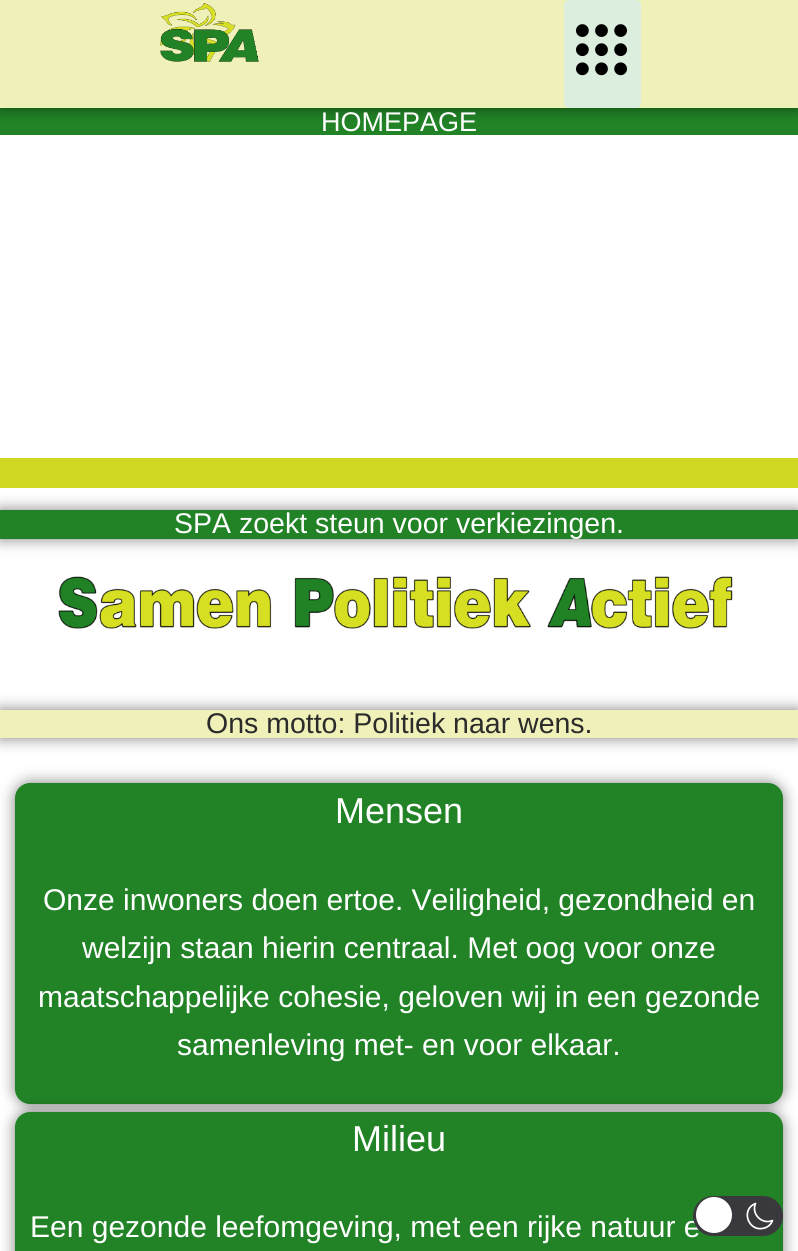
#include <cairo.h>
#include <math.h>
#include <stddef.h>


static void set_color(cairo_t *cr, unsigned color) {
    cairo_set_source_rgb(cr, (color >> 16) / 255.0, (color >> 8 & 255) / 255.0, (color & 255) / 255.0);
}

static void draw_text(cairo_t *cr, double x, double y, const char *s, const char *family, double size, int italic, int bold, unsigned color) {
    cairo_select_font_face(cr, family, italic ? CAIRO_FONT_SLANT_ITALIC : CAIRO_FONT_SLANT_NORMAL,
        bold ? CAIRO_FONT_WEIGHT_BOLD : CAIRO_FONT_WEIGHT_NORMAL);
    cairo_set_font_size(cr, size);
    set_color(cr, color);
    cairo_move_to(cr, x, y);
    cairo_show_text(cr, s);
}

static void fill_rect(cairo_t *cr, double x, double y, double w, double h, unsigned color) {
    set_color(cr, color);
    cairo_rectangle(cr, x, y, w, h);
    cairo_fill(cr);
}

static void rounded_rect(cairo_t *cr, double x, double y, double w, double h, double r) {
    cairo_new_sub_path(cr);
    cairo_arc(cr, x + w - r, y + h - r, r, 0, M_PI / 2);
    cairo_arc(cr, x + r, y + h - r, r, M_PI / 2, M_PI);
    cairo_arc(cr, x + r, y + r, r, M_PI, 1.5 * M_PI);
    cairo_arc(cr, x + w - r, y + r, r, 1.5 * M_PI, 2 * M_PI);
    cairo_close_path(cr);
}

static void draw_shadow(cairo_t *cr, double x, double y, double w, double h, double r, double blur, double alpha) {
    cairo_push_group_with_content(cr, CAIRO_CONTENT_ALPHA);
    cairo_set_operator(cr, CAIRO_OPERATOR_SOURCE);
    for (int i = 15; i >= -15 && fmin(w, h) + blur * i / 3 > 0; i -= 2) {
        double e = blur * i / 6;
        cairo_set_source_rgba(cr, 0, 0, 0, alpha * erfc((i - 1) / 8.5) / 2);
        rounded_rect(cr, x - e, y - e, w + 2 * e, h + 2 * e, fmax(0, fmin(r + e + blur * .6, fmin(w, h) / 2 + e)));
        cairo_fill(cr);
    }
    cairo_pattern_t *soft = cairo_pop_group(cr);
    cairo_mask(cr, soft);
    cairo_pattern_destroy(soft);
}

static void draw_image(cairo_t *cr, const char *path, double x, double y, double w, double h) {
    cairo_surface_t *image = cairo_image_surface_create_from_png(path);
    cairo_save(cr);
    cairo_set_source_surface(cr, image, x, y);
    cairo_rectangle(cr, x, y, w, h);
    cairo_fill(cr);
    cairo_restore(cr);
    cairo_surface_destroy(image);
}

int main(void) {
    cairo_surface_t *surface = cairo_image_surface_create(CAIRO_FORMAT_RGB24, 798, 1251);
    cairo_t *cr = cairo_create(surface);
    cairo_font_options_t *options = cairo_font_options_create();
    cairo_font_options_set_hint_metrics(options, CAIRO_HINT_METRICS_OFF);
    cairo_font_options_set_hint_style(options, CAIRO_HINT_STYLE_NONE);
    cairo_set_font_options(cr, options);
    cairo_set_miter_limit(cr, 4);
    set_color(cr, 0xFFFFFF);
    cairo_paint(cr);
    fill_rect(cr, 0, 108, 798, 27, 0x218326);
    set_color(cr, 0x000000);
    draw_shadow(cr, 0, 0, 798, 108, 0, 7.5, 0.5);
    fill_rect(cr, 0, 0, 798, 108, 0xEFF1B8);
    draw_image(cr, "assets/img1.png", 160, 3, 99, 59);
    set_color(cr, 0xDCEEDD);
    rounded_rect(cr, 564, 0, 77, 108, 5);
    cairo_fill(cr);
    draw_image(cr, "assets/img2.png", 576, 24, 51, 52);
    draw_text(cr, 321, 131, "HOMEPAGE", "Liberation Sans", 27, 0, 0, 0xFFFFFF);
    fill_rect(cr, 0, 458, 798, 30, 0xCFD722);
    set_color(cr, 0x000000);
    draw_shadow(cr, 0, 510, 798, 29, 0, 7.5, 0.5);
    fill_rect(cr, 0, 510, 798, 29, 0x218326);
    draw_text(cr, 174, 533, "SPA zoekt steun voor verkiezingen.", "Liberation Sans", 28.5, 0, 0, 0xFFFFFF);
    draw_image(cr, "assets/img3.png", 58, 576, 675, 53);
    fill_rect(cr, 0, 710, 798, 28, 0xEFF1B8);
    cairo_save(cr);
    cairo_set_fill_rule(cr, CAIRO_FILL_RULE_EVEN_ODD);
    cairo_new_path(cr);
    cairo_move_to(cr, 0, 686);
    cairo_line_to(cr, 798, 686);
    cairo_line_to(cr, 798, 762);
    cairo_line_to(cr, 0, 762);
    cairo_close_path(cr);
    cairo_move_to(cr, 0, 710);
    cairo_line_to(cr, 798, 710);
    cairo_line_to(cr, 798, 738);
    cairo_line_to(cr, 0, 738);
    cairo_close_path(cr);
    cairo_clip(cr);
    set_color(cr, 0x000000);
    draw_shadow(cr, 0, 710, 798, 28, 0, 7.5, 0.5);
    cairo_restore(cr);
    draw_text(cr, 206, 733, "Ons motto: Politiek naar wens.", "Liberation Sans", 28.5, 0, 0, 0x2B2B2B);
    set_color(cr, 0x000000);
    draw_shadow(cr, 15, 783, 768, 321, 15, 7.5, 0.5);
    set_color(cr, 0x218326);
    rounded_rect(cr, 15, 783, 768, 321, 15);
    cairo_fill(cr);
    draw_text(cr, 335, 823, "Mensen", "Liberation Sans", 36, 0, 0, 0xFFFFFF);
    draw_text(cr, 43, 910, "Onze inwoners doen ertoe. Veiligheid, gezondheid en", "Liberation Sans", 30, 0, 0, 0xFFFFFF);
    draw_text(cr, 82, 958, "welzijn staan hierin centraal. Met oog voor onze", "Liberation Sans", 30, 0, 0, 0xFFFFFF);
    draw_text(cr, 38, 1007, "maatschappelijke cohesie, geloven wij in een gezonde", "Liberation Sans", 30, 0, 0, 0xFFFFFF);
    draw_text(cr, 177, 1055, "samenleving met- en voor elkaar.", "Liberation Sans", 30, 0, 0, 0xFFFFFF);
    set_color(cr, 0x000000);
    draw_shadow(cr, 15, 1112, 768, 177, 15, 7.5, 0.5);
    set_color(cr, 0x218326);
    rounded_rect(cr, 15, 1112, 768, 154, 15);
    cairo_fill(cr);
    draw_text(cr, 352, 1151, "Milieu", "Liberation Sans", 36, 0, 0, 0xFFFFFF);
    draw_text(cr, 30, 1237, "Een gezonde leefomgeving, met een rijke natuur e", "Liberation Sans", 30, 0, 0, 0xFFFFFF);
    set_color(cr, 0x39393D);
    rounded_rect(cr, 693, 1196, 90, 40, 20);
    cairo_fill(cr);
    set_color(cr, 0xFFFFFF);
    cairo_arc(cr, 714, 1215, 18, 0, 2 * M_PI);
    cairo_fill(cr);
    cairo_new_path(cr);
    cairo_move_to(cr, 772.5, 1220.5);
    cairo_curve_to(cr, 762, 1225, 751, 1214, 755.5, 1203.5);
    cairo_curve_to(cr, 740, 1209.5, 748.5, 1233, 764.5, 1228);
    cairo_curve_to(cr, 768, 1227, 771, 1224.5, 772.5, 1220.5);
    cairo_close_path(cr);
    cairo_set_line_width(cr, 1.7);
    cairo_set_line_cap(cr, CAIRO_LINE_CAP_ROUND);
    cairo_set_line_join(cr, CAIRO_LINE_JOIN_ROUND);
    cairo_stroke(cr);
    cairo_surface_write_to_png(surface, "output.png");
    cairo_font_options_destroy(options);
    cairo_destroy(cr);
    cairo_surface_destroy(surface);
    return 0;
}
